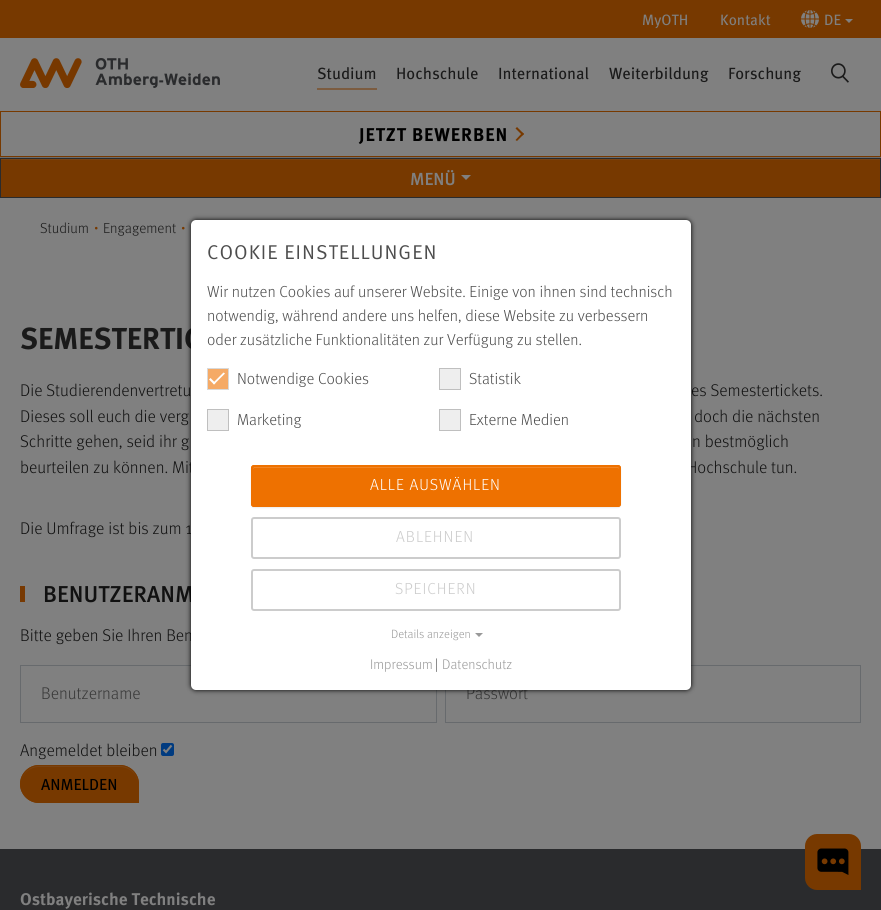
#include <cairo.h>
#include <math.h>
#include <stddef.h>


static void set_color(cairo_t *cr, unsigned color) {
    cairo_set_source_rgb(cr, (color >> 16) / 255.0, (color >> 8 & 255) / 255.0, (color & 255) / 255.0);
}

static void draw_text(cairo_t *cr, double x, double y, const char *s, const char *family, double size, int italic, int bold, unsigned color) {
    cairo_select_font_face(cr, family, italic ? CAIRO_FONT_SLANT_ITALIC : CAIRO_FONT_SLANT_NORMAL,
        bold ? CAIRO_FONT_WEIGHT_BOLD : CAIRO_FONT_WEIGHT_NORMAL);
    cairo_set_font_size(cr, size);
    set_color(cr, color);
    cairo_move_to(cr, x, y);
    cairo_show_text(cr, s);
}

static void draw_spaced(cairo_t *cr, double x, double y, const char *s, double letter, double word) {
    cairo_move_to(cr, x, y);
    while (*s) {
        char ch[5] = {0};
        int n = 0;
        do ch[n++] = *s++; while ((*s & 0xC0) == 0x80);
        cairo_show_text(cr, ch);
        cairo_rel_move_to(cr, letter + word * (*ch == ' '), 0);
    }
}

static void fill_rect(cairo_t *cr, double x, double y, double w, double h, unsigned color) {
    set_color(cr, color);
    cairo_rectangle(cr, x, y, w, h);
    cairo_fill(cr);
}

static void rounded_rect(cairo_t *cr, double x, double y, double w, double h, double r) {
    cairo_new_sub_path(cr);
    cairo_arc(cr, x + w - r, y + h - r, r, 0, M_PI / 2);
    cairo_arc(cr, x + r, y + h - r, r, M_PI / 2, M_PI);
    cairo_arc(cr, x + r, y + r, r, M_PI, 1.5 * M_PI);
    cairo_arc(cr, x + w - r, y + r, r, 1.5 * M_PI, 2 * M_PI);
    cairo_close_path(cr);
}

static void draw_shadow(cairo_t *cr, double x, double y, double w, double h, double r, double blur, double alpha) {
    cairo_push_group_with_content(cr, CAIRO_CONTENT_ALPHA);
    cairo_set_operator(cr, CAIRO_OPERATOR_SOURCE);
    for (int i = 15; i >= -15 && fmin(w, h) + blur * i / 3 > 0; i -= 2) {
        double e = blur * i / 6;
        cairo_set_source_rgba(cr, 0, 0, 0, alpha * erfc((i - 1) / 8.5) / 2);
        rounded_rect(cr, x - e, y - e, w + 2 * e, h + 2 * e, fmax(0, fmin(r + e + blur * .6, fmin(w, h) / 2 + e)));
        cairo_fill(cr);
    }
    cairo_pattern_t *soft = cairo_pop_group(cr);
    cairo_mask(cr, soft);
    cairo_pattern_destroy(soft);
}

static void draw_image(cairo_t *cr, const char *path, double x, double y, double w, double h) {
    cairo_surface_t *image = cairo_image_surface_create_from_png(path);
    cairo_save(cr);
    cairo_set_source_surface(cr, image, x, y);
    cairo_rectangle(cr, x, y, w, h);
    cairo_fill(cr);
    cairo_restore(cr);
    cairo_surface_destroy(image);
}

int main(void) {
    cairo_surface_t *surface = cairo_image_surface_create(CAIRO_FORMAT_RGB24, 881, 910);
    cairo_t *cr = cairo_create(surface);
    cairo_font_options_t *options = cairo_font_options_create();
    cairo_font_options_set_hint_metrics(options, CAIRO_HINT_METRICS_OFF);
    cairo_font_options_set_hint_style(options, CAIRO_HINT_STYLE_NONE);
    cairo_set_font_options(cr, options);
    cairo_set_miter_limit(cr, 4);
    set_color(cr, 0x808080);
    cairo_paint(cr);
    fill_rect(cr, 0, 0, 881, 38, 0x773900);
    draw_text(cr, 642, 25, "MyOTH", "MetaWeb", 15, 0, 0, 0x808080);
    draw_text(cr, 720, 25, "Kontakt", "MetaWeb", 15, 0, 0, 0x808080);
    draw_image(cr, "assets/img1.png", 801, 10, 18, 18);
    draw_text(cr, 824, 25, "DE", "MetaWeb", 15, 0, 0, 0x808080);
    cairo_new_path(cr);
    cairo_move_to(cr, 845, 19);
    cairo_line_to(cr, 853, 19);
    cairo_line_to(cr, 849, 23);
    cairo_close_path(cr);
    cairo_fill(cr);
    fill_rect(cr, 0, 157, 881, 1, 0x6D6D6D);
    draw_image(cr, "assets/img2.png", 20, 58, 200, 30);
    draw_text(cr, 317, 79, "Studium", "MetaWeb", 16.25, 0, 0, 0x1A1A1A);
    fill_rect(cr, 317, 88, 60, 2, 0x7C5C40);
    draw_text(cr, 396, 79, "Hochschule", "MetaWeb", 16.25, 0, 0, 0x1A1A1A);
    draw_text(cr, 498, 79, "International", "MetaWeb", 16.25, 0, 0, 0x1A1A1A);
    draw_text(cr, 609, 79, "Weiterbildung", "MetaWeb", 16.25, 0, 0, 0x1A1A1A);
    draw_text(cr, 728, 79, "Forschung", "MetaWeb", 16.25, 0, 0, 0x1A1A1A);
    draw_image(cr, "assets/img3.png", 831, 63, 18, 20);
    cairo_rectangle(cr, 0.5, 111.5, 880, 45);
    set_color(cr, 0x773900);
    cairo_set_line_width(cr, 1);
    cairo_stroke(cr);
    cairo_select_font_face(cr, "MetaWeb", CAIRO_FONT_SLANT_NORMAL, CAIRO_FONT_WEIGHT_BOLD);
    cairo_set_font_size(cr, 18.5);
    set_color(cr, 0x000000);
    draw_spaced(cr, 359, 141, "JETZT BEWERBEN", 0.9, 0);
    set_color(cr, 0x773900);
    cairo_new_path(cr);
    cairo_move_to(cr, 515.5, 128.5);
    cairo_line_to(cr, 517, 127);
    cairo_line_to(cr, 524, 134);
    cairo_line_to(cr, 522.5, 135.5);
    cairo_close_path(cr);
    cairo_fill(cr);
    cairo_new_path(cr);
    cairo_move_to(cr, 515.5, 140);
    cairo_line_to(cr, 522.5, 132.5);
    cairo_line_to(cr, 524, 134);
    cairo_line_to(cr, 517, 141);
    cairo_close_path(cr);
    cairo_fill(cr);
    fill_rect(cr, 1, 160, 879, 37, 0x773900);
    fill_rect(cr, 1, 159, 879, 1, 0x794313);
    cairo_rectangle(cr, 0.5, 158.5, 880, 39);
    set_color(cr, 0x2A2B2D);
    cairo_stroke(cr);
    draw_text(cr, 410, 185, "MENÜ", "MetaWeb Medium", 17.5, 0, 0, 0x808080);
    cairo_new_path(cr);
    cairo_move_to(cr, 461, 175);
    cairo_line_to(cr, 471, 175);
    cairo_line_to(cr, 466, 180);
    cairo_close_path(cr);
    cairo_fill(cr);
    draw_text(cr, 40, 233, "Studium", "MetaWeb Light", 14.5, 0, 0, 0x1A1A1A);
    draw_text(cr, 93, 236, "·", "MetaWeb Light", 28, 0, 0, 0x773900);
    draw_text(cr, 103, 233, "Engagement", "MetaWeb Light", 14.5, 0, 0, 0x1A1A1A);
    draw_text(cr, 180, 236, "·", "MetaWeb Light", 28, 0, 0, 0x773900);
    draw_text(cr, 20, 349, "SEMESTERTIC", "MetaWeb", 30.25, 0, 1, 0x1A1A1A);
    draw_text(cr, 20, 396, "Die Studierendenvertretu", "MetaWeb Light", 17, 0, 0, 0x111111);
    draw_text(cr, 691, 396, "es Semestertickets.", "MetaWeb Light", 17, 0, 0, 0x111111);
    draw_text(cr, 20, 422, "Dieses soll euch die verg", "MetaWeb Light", 17, 0, 0, 0x111111);
    draw_text(cr, 694, 422, "doch die nächsten", "MetaWeb Light", 17, 0, 0, 0x111111);
    draw_text(cr, 20, 447, "Schritte gehen, seid ihr g", "MetaWeb Light", 17, 0, 0, 0x111111);
    draw_text(cr, 692, 447, "n bestmöglich", "MetaWeb Light", 17, 0, 0, 0x111111);
    draw_text(cr, 20, 473, "beurteilen zu können. Mit", "MetaWeb Light", 17, 0, 0, 0x111111);
    draw_text(cr, 687, 473, "Hochschule tun.", "MetaWeb Light", 17, 0, 0, 0x111111);
    draw_text(cr, 20, 534, "Die Umfrage ist bis zum 1", "MetaWeb Light", 17, 0, 0, 0x111111);
    fill_rect(cr, 20, 586, 5, 16, 0x773902);
    draw_text(cr, 43, 602, "BENUTZERANM", "MetaWeb Medium", 23, 0, 0, 0x111111);
    draw_text(cr, 20, 641, "Bitte geben Sie Ihren Ben", "MetaWeb Light", 17, 0, 0, 0x111111);
    cairo_rectangle(cr, 20.5, 665.5, 416, 57);
    set_color(cr, 0x676A6D);
    cairo_stroke(cr);
    draw_text(cr, 41, 699, "Benutzername", "MetaWeb Light", 17, 0, 0, 0x383838);
    cairo_rectangle(cr, 445.5, 665.5, 415, 57);
    set_color(cr, 0x676A6D);
    cairo_stroke(cr);
    draw_text(cr, 466, 699, "Passwort", "MetaWeb Light", 17, 0, 0, 0x383838);
    draw_text(cr, 20, 756, "Angemeldet bleiben", "MetaWeb Light", 17, 0, 0, 0x111111);
    set_color(cr, 0x003B80);
    rounded_rect(cr, 161, 743, 13, 13, 2);
    cairo_fill(cr);
    cairo_new_path(cr);
    cairo_move_to(cr, 163.5, 749.5);
    cairo_line_to(cr, 166, 752);
    cairo_line_to(cr, 171.5, 745.5);
    set_color(cr, 0x808080);
    cairo_set_line_width(cr, 2.1);
    cairo_stroke(cr);
    set_color(cr, 0x773900);
    cairo_new_path(cr);
    cairo_move_to(cr, 39, 765);
    cairo_line_to(cr, 120, 765);
    cairo_curve_to(cr, 130.5, 765, 139, 773.5, 139, 784);
    cairo_line_to(cr, 139, 803);
    cairo_line_to(cr, 39, 803);
    cairo_curve_to(cr, 28.5, 803, 20, 794.5, 20, 784);
    cairo_curve_to(cr, 20, 773.5, 28.5, 765, 39, 765);
    cairo_close_path(cr);
    cairo_fill(cr);
    set_color(cr, 0x794313);
    cairo_new_path(cr);
    cairo_move_to(cr, 39, 767);
    cairo_line_to(cr, 120, 767);
    cairo_curve_to(cr, 130, 767, 138, 775, 138, 785);
    cairo_curve_to(cr, 138, 776, 133, 768, 124, 766);
    cairo_line_to(cr, 106, 766);
    cairo_line_to(cr, 35, 766);
    cairo_curve_to(cr, 27, 768, 21, 776, 21, 784);
    cairo_curve_to(cr, 21, 775, 29, 767, 39, 767);
    cairo_close_path(cr);
    cairo_fill(cr);
    cairo_new_path(cr);
    cairo_move_to(cr, 39, 765.5);
    cairo_line_to(cr, 120, 765.5);
    cairo_curve_to(cr, 130, 765.5, 138.5, 774, 138.5, 784);
    cairo_line_to(cr, 138.5, 802.5);
    cairo_line_to(cr, 39, 802.5);
    cairo_curve_to(cr, 29, 802.5, 20.5, 794, 20.5, 784);
    cairo_curve_to(cr, 20.5, 774, 29, 765.5, 39, 765.5);
    cairo_close_path(cr);
    set_color(cr, 0x773900);
    cairo_set_line_width(cr, 1);
    cairo_stroke(cr);
    draw_text(cr, 41, 790, "ANMELDEN", "MetaWeb", 16, 0, 0, 0x000000);
    fill_rect(cr, 0, 849, 881, 61, 0x2A2B2D);
    set_color(cr, 0x773900);
    cairo_new_path(cr);
    cairo_move_to(cr, 817, 834);
    cairo_line_to(cr, 849, 834);
    cairo_curve_to(cr, 855.5, 834, 861, 839.5, 861, 846);
    cairo_line_to(cr, 861, 890);
    cairo_line_to(cr, 817, 890);
    cairo_curve_to(cr, 810.5, 890, 805, 884.5, 805, 878);
    cairo_line_to(cr, 805, 846);
    cairo_curve_to(cr, 805, 839.5, 810.5, 834, 817, 834);
    cairo_close_path(cr);
    cairo_fill(cr);
    draw_image(cr, "assets/img4.png", 817, 848, 32, 27);
    draw_text(cr, 20, 905, "Ostbayerische Technische", "MetaWeb", 17, 0, 1, 0x808080);
    set_color(cr, 0x000000);
    draw_shadow(cr, 191, 220, 500, 470, 5, 2.5, 1);
    set_color(cr, 0xFFFFFF);
    rounded_rect(cr, 191, 220, 500, 470, 5);
    cairo_fill(cr);
    cairo_select_font_face(cr, "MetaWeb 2", CAIRO_FONT_SLANT_NORMAL, CAIRO_FONT_WEIGHT_NORMAL);
    cairo_set_font_size(cr, 20);
    set_color(cr, 0x4D4D4D);
    draw_spaced(cr, 207, 259, "COOKIE EINSTELLUNGEN", 1, 0);
    draw_text(cr, 207, 297, "Wir nutzen Cookies auf unserer Website. Einige von ihnen sind technisch", "MetaWeb Light", 16, 0, 0, 0x4D4D4D);
    draw_text(cr, 207, 321, "notwendig, während andere uns helfen, diese Website zu verbessern", "MetaWeb Light", 16, 0, 0, 0x4D4D4D);
    draw_text(cr, 207, 345, "oder zusätzliche Funktionalitäten zur Verfügung zu stellen.", "MetaWeb Light", 16, 0, 0, 0x4D4D4D);
    set_color(cr, 0xF5AA66);
    cairo_rectangle(cr, 207.5, 368.5, 21, 21);
    cairo_fill_preserve(cr);
    set_color(cr, 0xD9D9D9);
    cairo_stroke(cr);
    set_color(cr, 0xFFFFFF);
    cairo_new_path(cr);
    cairo_move_to(cr, 223.5, 372.5);
    cairo_line_to(cr, 225, 373.5);
    cairo_line_to(cr, 214, 384.5);
    cairo_line_to(cr, 213, 383);
    cairo_close_path(cr);
    cairo_fill(cr);
    cairo_new_path(cr);
    cairo_move_to(cr, 210.5, 378);
    cairo_line_to(cr, 215.5, 383);
    cairo_line_to(cr, 214, 384.5);
    cairo_line_to(cr, 209, 379.5);
    cairo_close_path(cr);
    cairo_fill(cr);
    draw_text(cr, 237, 384, "Notwendige Cookies", "MetaWeb Light", 16, 0, 0, 0x4D4D4D);
    set_color(cr, 0xEEEEEE);
    cairo_rectangle(cr, 439.5, 368.5, 21, 21);
    cairo_fill_preserve(cr);
    set_color(cr, 0xBFBFBF);
    cairo_stroke(cr);
    draw_text(cr, 469, 384, "Statistik", "MetaWeb Light", 16, 0, 0, 0x4D4D4D);
    set_color(cr, 0xEEEEEE);
    cairo_rectangle(cr, 207.5, 409.5, 21, 21);
    cairo_fill_preserve(cr);
    set_color(cr, 0xBFBFBF);
    cairo_stroke(cr);
    draw_text(cr, 237, 425, "Marketing", "MetaWeb Light", 16, 0, 0, 0x4D4D4D);
    set_color(cr, 0xEEEEEE);
    cairo_rectangle(cr, 439.5, 409.5, 21, 21);
    cairo_fill_preserve(cr);
    set_color(cr, 0xBFBFBF);
    cairo_stroke(cr);
    draw_text(cr, 469, 425, "Externe Medien", "MetaWeb Light", 16, 0, 0, 0x4D4D4D);
    set_color(cr, 0x000000);
    draw_shadow(cr, 251, 466, 370, 42, 3, 0.5, 0.07);
    set_color(cr, 0xEE7100);
    rounded_rect(cr, 251, 465, 370, 42, 3);
    cairo_fill(cr);
    set_color(cr, 0xF18626);
    cairo_new_path(cr);
    cairo_move_to(cr, 254, 468);
    cairo_line_to(cr, 618, 468);
    cairo_line_to(cr, 619, 469);
    cairo_curve_to(cr, 619, 468, 619, 467, 618, 467);
    cairo_line_to(cr, 254, 467);
    cairo_line_to(cr, 253, 468);
    cairo_line_to(cr, 253, 469);
    cairo_close_path(cr);
    cairo_fill(cr);
    rounded_rect(cr, 252, 466, 368, 40, 2);
    set_color(cr, 0xEE7100);
    cairo_set_line_width(cr, 2);
    cairo_stroke(cr);
    set_color(cr, 0xFFFFFF);
    draw_spaced(cr, 370, 490, "ALLE AUSWÄHLEN", 1, 0);
    rounded_rect(cr, 252, 518, 368, 40, 2);
    set_color(cr, 0xCCCCCC);
    cairo_stroke(cr);
    draw_spaced(cr, 396, 542, "ABLEHNEN", 1, 0);
    rounded_rect(cr, 252, 570, 368, 40, 2);
    cairo_stroke(cr);
    draw_spaced(cr, 395, 594, "SPEICHERN", 1, 0);
    draw_text(cr, 391, 638, "Details anzeigen", "MetaWeb Light", 12, 0, 0, 0x999999);
    cairo_new_path(cr);
    cairo_move_to(cr, 475, 633);
    cairo_line_to(cr, 483, 633);
    cairo_line_to(cr, 479, 637);
    cairo_close_path(cr);
    cairo_fill(cr);
    draw_text(cr, 370, 669, "Impressum", "MetaWeb Light", 14, 0, 0, 0x999999);
    draw_text(cr, 435, 669, "|", "MetaWeb Light", 14, 0, 0, 0x4D4D4D);
    draw_text(cr, 442, 669, "Datenschutz", "MetaWeb Light", 14, 0, 0, 0x999999);
    cairo_surface_write_to_png(surface, "output.png");
    cairo_font_options_destroy(options);
    cairo_destroy(cr);
    cairo_surface_destroy(surface);
    return 0;
}
